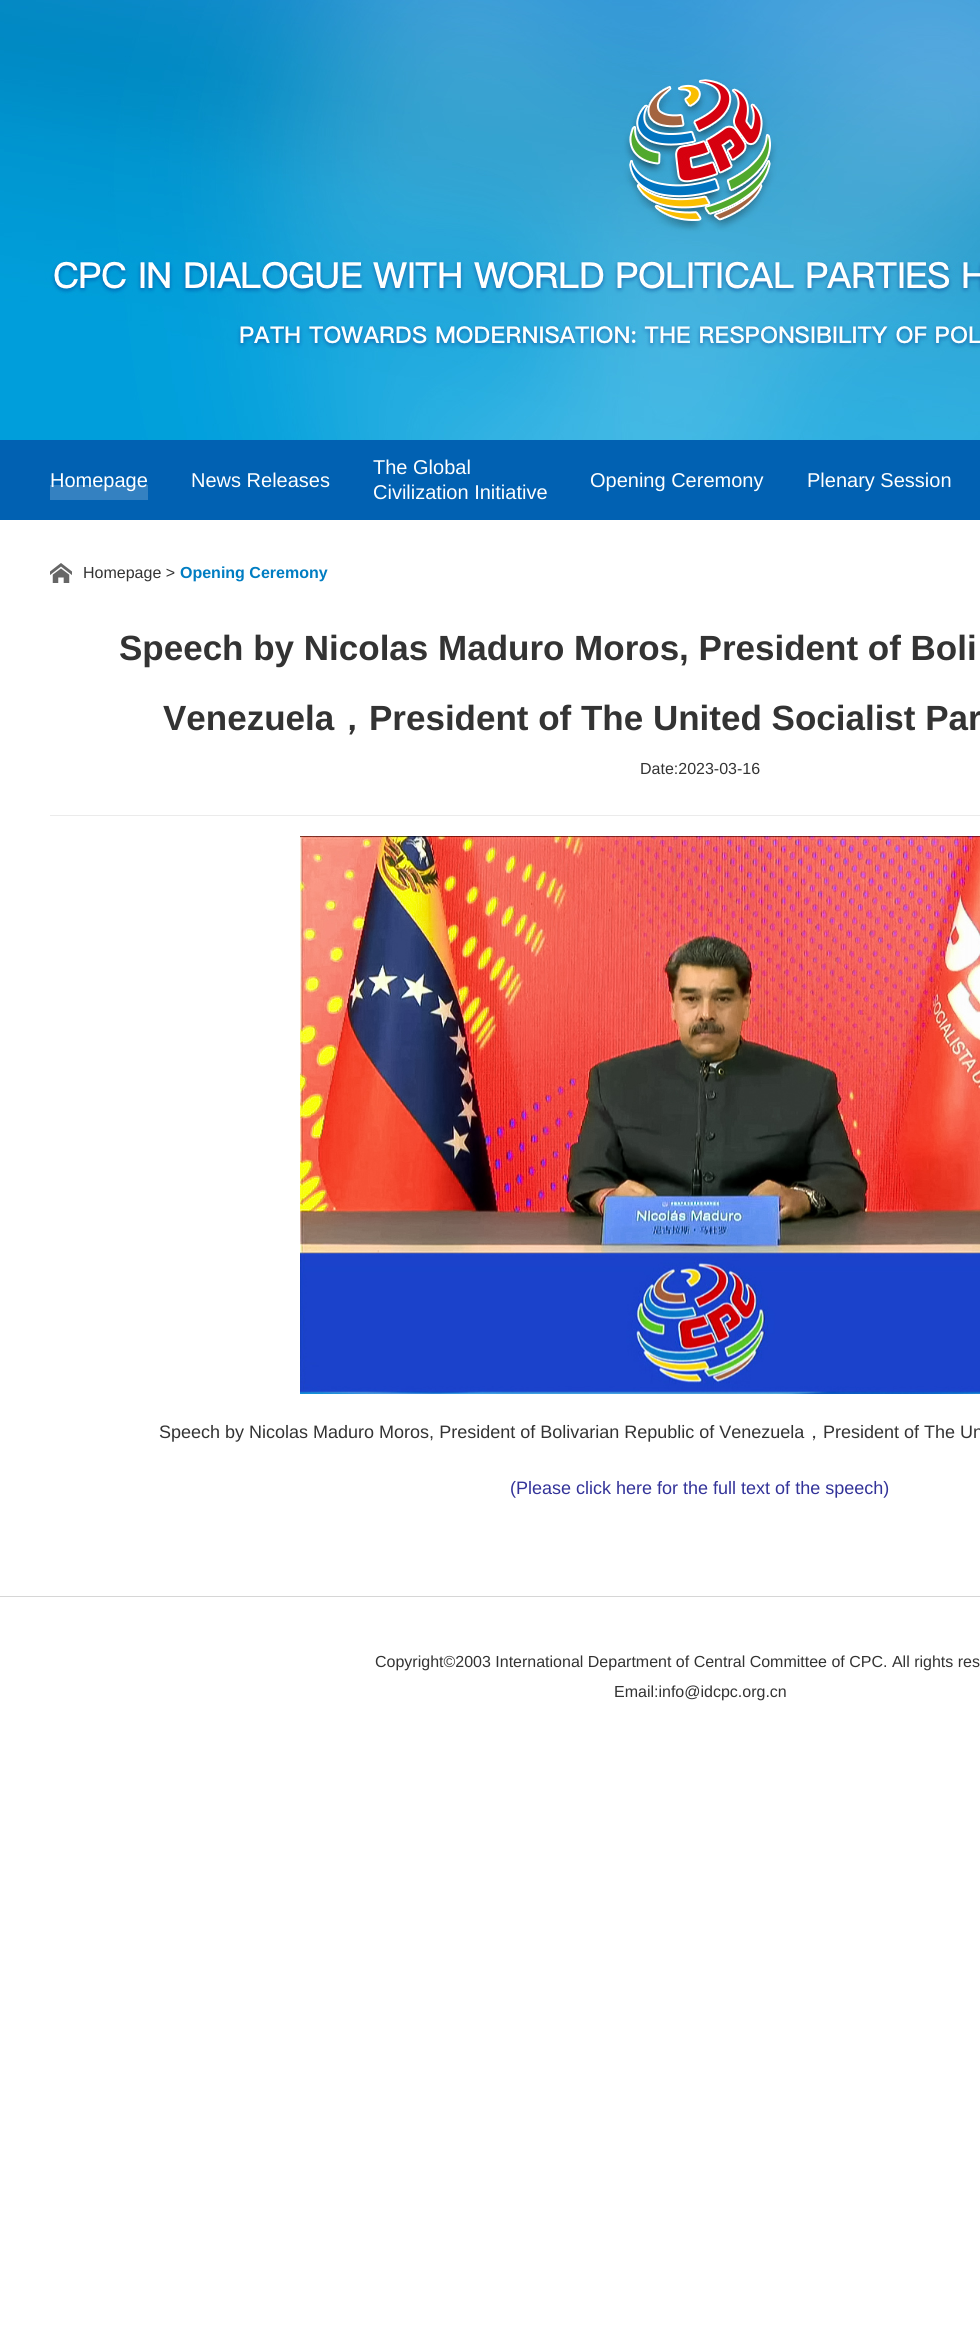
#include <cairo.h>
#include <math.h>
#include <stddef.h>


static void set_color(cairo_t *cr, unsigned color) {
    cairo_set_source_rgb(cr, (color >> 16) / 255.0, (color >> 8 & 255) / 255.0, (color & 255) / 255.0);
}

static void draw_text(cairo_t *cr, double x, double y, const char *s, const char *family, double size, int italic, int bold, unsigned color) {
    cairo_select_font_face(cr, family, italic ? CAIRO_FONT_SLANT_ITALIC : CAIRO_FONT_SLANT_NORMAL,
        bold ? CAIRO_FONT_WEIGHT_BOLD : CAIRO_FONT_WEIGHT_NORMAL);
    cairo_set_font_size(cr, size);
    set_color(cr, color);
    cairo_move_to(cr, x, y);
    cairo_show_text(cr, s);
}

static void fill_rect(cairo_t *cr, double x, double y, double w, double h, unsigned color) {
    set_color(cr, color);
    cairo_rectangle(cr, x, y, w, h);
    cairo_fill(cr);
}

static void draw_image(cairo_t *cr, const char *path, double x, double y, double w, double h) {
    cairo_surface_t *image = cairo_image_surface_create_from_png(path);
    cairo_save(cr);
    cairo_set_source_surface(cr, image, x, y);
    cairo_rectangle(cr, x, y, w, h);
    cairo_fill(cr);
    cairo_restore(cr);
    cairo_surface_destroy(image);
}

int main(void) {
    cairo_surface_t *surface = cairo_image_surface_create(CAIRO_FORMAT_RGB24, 980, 2352);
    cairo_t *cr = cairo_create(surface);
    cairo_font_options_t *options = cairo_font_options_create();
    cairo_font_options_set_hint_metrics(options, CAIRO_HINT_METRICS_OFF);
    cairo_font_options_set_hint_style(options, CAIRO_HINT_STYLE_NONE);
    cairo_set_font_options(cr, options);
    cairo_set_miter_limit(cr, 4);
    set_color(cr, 0xFFFFFF);
    cairo_paint(cr);
    draw_image(cr, "assets/img1.png", 0, 0, 980, 440);
    fill_rect(cr, 0, 440, 980, 80, 0x0161B2);
    draw_text(cr, 50, 487, "Homepage", "Liberation Sans", 20, 0, 0, 0xFFFFFF);
    cairo_set_source_rgba(cr, 1, 1, 1, 0.2);
    cairo_rectangle(cr, 50, 485, 98, 15);
    cairo_fill(cr);
    draw_text(cr, 191, 487, "News Releases", "Liberation Sans", 20, 0, 0, 0xFFFFFF);
    draw_text(cr, 373, 474, "The Global", "Liberation Sans", 20, 0, 0, 0xFFFFFF);
    draw_text(cr, 373, 499, "Civilization Initiative", "Liberation Sans", 20, 0, 0, 0xFFFFFF);
    draw_text(cr, 590, 487, "Opening Ceremony", "Liberation Sans", 20, 0, 0, 0xFFFFFF);
    draw_text(cr, 807, 487, "Plenary Session", "Liberation Sans", 20, 0, 0, 0xFFFFFF);
    draw_image(cr, "assets/img2.png", 50, 563, 22, 20);
    draw_text(cr, 83, 578, "Homepage >", "Liberation Sans", 16, 0, 0, 0x333333);
    draw_text(cr, 180, 578, "Opening Ceremony", "Liberation Sans", 16, 0, 1, 0x007DC2);
    fill_rect(cr, 50, 815, 930, 1, 0xEBEBEB);
    draw_text(cr, 119, 660, "Speech by Nicolas Maduro Moros, President of Boli", "Liberation Sans", 35, 0, 1, 0x333333);
    draw_text(cr, 163, 730, "Venezuela", "Liberation Sans", 35, 0, 1, 0x333333);
    draw_text(cr, 334, 730, "，", "WenQuanYi Zen Hei", 35, 0, 1, 0x333333);
    draw_text(cr, 369, 730, "President of The United Socialist Par", "Liberation Sans", 35, 0, 1, 0x333333);
    draw_text(cr, 640, 774, "Date:2023-03-16", "Liberation Sans", 16, 0, 0, 0x333333);
    draw_image(cr, "assets/img3.png", 300, 836, 680, 558);
    draw_text(cr, 159, 1438, "Speech by Nicolas Maduro Moros, President of Bolivarian Republic of Venezuela", "Liberation Sans", 18, 0, 0, 0x333333);
    draw_text(cr, 805, 1438, "，", "WenQuanYi Zen Hei Medium", 18, 0, 0, 0x333333);
    draw_text(cr, 823, 1438, "President of The Un", "Liberation Sans", 18, 0, 0, 0x333333);
    draw_text(cr, 510, 1494, "(Please click here for the full text of the speech)", "Liberation Sans", 18, 0, 0, 0x333399);
    fill_rect(cr, 0, 1596, 980, 1, 0xD6D6D6);
    draw_text(cr, 375, 1667, "Copyright©2003 International Department of Central Committee of CPC. All rights res", "Liberation Sans", 16, 0, 0, 0x333333);
    draw_text(cr, 614, 1697, "Email:info@idcpc.org.cn", "Liberation Sans", 16, 0, 0, 0x333333);
    cairo_surface_write_to_png(surface, "output.png");
    cairo_font_options_destroy(options);
    cairo_destroy(cr);
    cairo_surface_destroy(surface);
    return 0;
}
